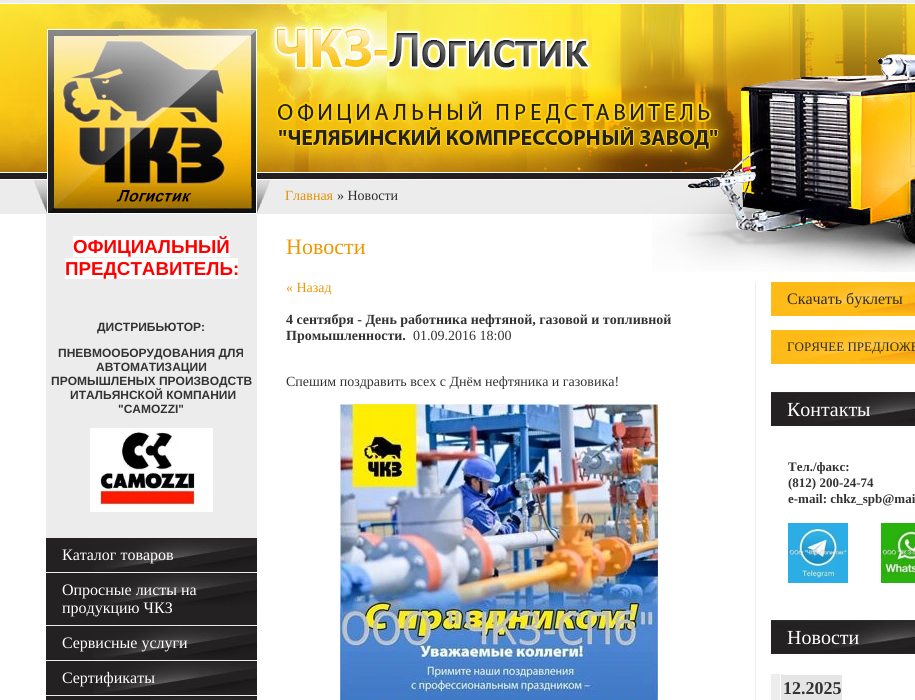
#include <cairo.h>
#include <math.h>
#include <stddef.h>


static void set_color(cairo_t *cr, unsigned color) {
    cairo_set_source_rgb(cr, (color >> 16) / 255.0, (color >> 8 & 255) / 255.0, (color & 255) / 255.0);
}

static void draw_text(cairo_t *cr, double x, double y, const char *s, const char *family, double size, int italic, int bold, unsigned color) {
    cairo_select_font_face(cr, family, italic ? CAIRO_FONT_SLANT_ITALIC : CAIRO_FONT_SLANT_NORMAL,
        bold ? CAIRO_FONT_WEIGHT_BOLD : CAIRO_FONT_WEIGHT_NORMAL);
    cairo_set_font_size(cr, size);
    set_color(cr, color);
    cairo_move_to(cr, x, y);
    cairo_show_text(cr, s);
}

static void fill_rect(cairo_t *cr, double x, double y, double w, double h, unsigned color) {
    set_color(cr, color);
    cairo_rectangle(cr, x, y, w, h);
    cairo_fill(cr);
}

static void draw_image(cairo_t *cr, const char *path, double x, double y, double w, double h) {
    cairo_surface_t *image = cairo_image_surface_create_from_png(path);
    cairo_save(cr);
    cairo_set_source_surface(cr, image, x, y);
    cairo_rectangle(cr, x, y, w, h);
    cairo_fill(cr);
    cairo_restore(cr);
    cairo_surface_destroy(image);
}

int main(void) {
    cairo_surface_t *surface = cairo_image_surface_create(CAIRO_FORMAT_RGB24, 915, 700);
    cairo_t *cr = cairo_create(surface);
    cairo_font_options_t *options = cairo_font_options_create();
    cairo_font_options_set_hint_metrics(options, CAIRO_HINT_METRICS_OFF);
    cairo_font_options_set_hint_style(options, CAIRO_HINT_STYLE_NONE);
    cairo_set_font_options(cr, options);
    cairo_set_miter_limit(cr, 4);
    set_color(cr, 0xFFFFFF);
    cairo_paint(cr);
    draw_image(cr, "assets/img1.png", 0, 0, 915, 105);
    draw_image(cr, "assets/img2.png", 0, 105, 915, 109);
    draw_text(cr, 285, 200, "Главная", "Liberation Serif", 14, 0, 0, 0xE19104);
    draw_text(cr, 337, 200, "» Новости", "Liberation Serif", 14, 0, 0, 0x2E2D2D);
    draw_image(cr, "assets/img3.png", 652, 214, 263, 58);
    fill_rect(cr, 46, 214, 211, 482, 0xECECEC);
    fill_rect(cr, 73, 236, 157, 21, 0xFFFFFF);
    draw_text(cr, 73, 253, "ОФИЦИАЛЬНЫЙ", "Liberation Sans", 18.75, 0, 1, 0xFF0000);
    fill_rect(cr, 65, 258, 173, 21, 0xFFFFFF);
    draw_text(cr, 65, 275, "ПРЕДСТАВИТЕЛЬ:", "Liberation Sans", 18.75, 0, 1, 0xFF0000);
    draw_text(cr, 97, 331, "ДИСТРИБЬЮТОР:", "Liberation Sans", 12, 0, 1, 0x333333);
    draw_text(cr, 58, 357, "ПНЕВМООБОРУДОВАНИЯ ДЛЯ", "Liberation Sans", 12, 0, 1, 0x333333);
    draw_text(cr, 96, 371, "АВТОМАТИЗАЦИИ", "Liberation Sans", 12, 0, 1, 0x333333);
    draw_text(cr, 51, 385, "ПРОМЫШЛЕНЫХ ПРОИЗВОДСТВ", "Liberation Sans", 12, 0, 1, 0x333333);
    draw_text(cr, 70, 399, "ИТАЛЬЯНСКОЙ КОМПАНИИ", "Liberation Sans", 12, 0, 1, 0x333333);
    draw_text(cr, 118, 413, "\"CAMOZZI\"", "Liberation Sans", 12, 0, 1, 0x333333);
    draw_image(cr, "assets/img4.png", 90, 428, 123, 84);
    fill_rect(cr, 46, 538, 211, 34, 0x242122);
    draw_image(cr, "assets/img5.png", 94, 539, 163, 32);
    draw_text(cr, 62, 560, "Каталог товаров", "Liberation Serif", 16, 0, 0, 0xFFFFFF);
    fill_rect(cr, 46, 573, 211, 52, 0x242122);
    draw_image(cr, "assets/img5.png", 94, 574, 163, 32);
    draw_text(cr, 62, 595, "Опросные листы на", "Liberation Serif", 16, 0, 0, 0xFFFFFF);
    draw_text(cr, 62, 613, "продукцию ЧКЗ", "Liberation Serif", 16, 0, 0, 0xFFFFFF);
    fill_rect(cr, 46, 626, 211, 34, 0x242122);
    draw_image(cr, "assets/img5.png", 94, 627, 163, 32);
    draw_text(cr, 62, 648, "Сервисные услуги", "Liberation Serif", 16, 0, 0, 0xFFFFFF);
    fill_rect(cr, 46, 661, 211, 34, 0x242122);
    draw_image(cr, "assets/img5.png", 94, 662, 163, 32);
    draw_text(cr, 62, 683, "Сертификаты", "Liberation Serif", 16, 0, 0, 0xFFFFFF);
    fill_rect(cr, 46, 696, 211, 4, 0x242122);
    draw_image(cr, "assets/img6.png", 150, 697, 104, 3);
    draw_text(cr, 286, 254, "Новости", "Liberation Serif", 22, 0, 0, 0xEE9801);
    draw_text(cr, 286, 292, "« Назад", "Liberation Serif", 14, 0, 0, 0xEA9808);
    draw_text(cr, 286, 324, "4 сентября - День работника нефтяной, газовой и топливной", "Liberation Serif", 14, 0, 1, 0x333333);
    draw_text(cr, 286, 340, "Промышленности.", "Liberation Serif", 14, 0, 1, 0x333333);
    draw_text(cr, 413, 340, "01.09.2016 18:00", "Liberation Serif", 14, 0, 0, 0x333333);
    draw_text(cr, 286, 386, "Спешим поздравить всех с Днём нефтяника и газовика!", "Liberation Serif", 14, 0, 0, 0x333333);
    draw_image(cr, "assets/img7.png", 340, 404, 318, 296);
    fill_rect(cr, 755, 282, 1, 418, 0xECECEC);
    draw_image(cr, "assets/img8.png", 771, 282, 144, 34);
    draw_text(cr, 787, 304, "Скачать буклеты", "Liberation Serif", 16, 0, 0, 0x2E2D2D);
    draw_image(cr, "assets/img8.png", 771, 330, 144, 34);
    draw_text(cr, 787, 351, "ГОРЯЧЕЕ ПРЕДЛОЖЕ", "Liberation Serif", 13, 0, 0, 0x2E2D2D);
    draw_image(cr, "assets/img9.png", 771, 392, 144, 34);
    draw_text(cr, 787, 416, "Контакты", "Liberation Serif", 20, 0, 0, 0xFFFFFF);
    draw_text(cr, 788, 471, "Тел./факс:", "Liberation Serif", 13, 0, 1, 0x333333);
    draw_text(cr, 788, 487, "(812) 200-24-74", "Liberation Serif", 13, 0, 1, 0x333333);
    draw_text(cr, 788, 503, "e-mail: chkz_spb@mai", "Liberation Serif", 13, 0, 1, 0x333333);
    draw_image(cr, "assets/img10.png", 788, 523, 60, 60);
    draw_image(cr, "assets/img11.png", 881, 523, 34, 60);
    draw_image(cr, "assets/img9.png", 771, 620, 144, 34);
    draw_text(cr, 787, 644, "Новости", "Liberation Serif", 20, 0, 0, 0xFFFFFF);
    draw_image(cr, "assets/img12.png", 771, 674, 12, 26);
    fill_rect(cr, 783, 675, 59, 25, 0xE5E5E5);
    draw_text(cr, 783, 694, "12.2025", "Liberation Serif", 18, 0, 1, 0x333333);
    cairo_surface_write_to_png(surface, "output.png");
    cairo_font_options_destroy(options);
    cairo_destroy(cr);
    cairo_surface_destroy(surface);
    return 0;
}
